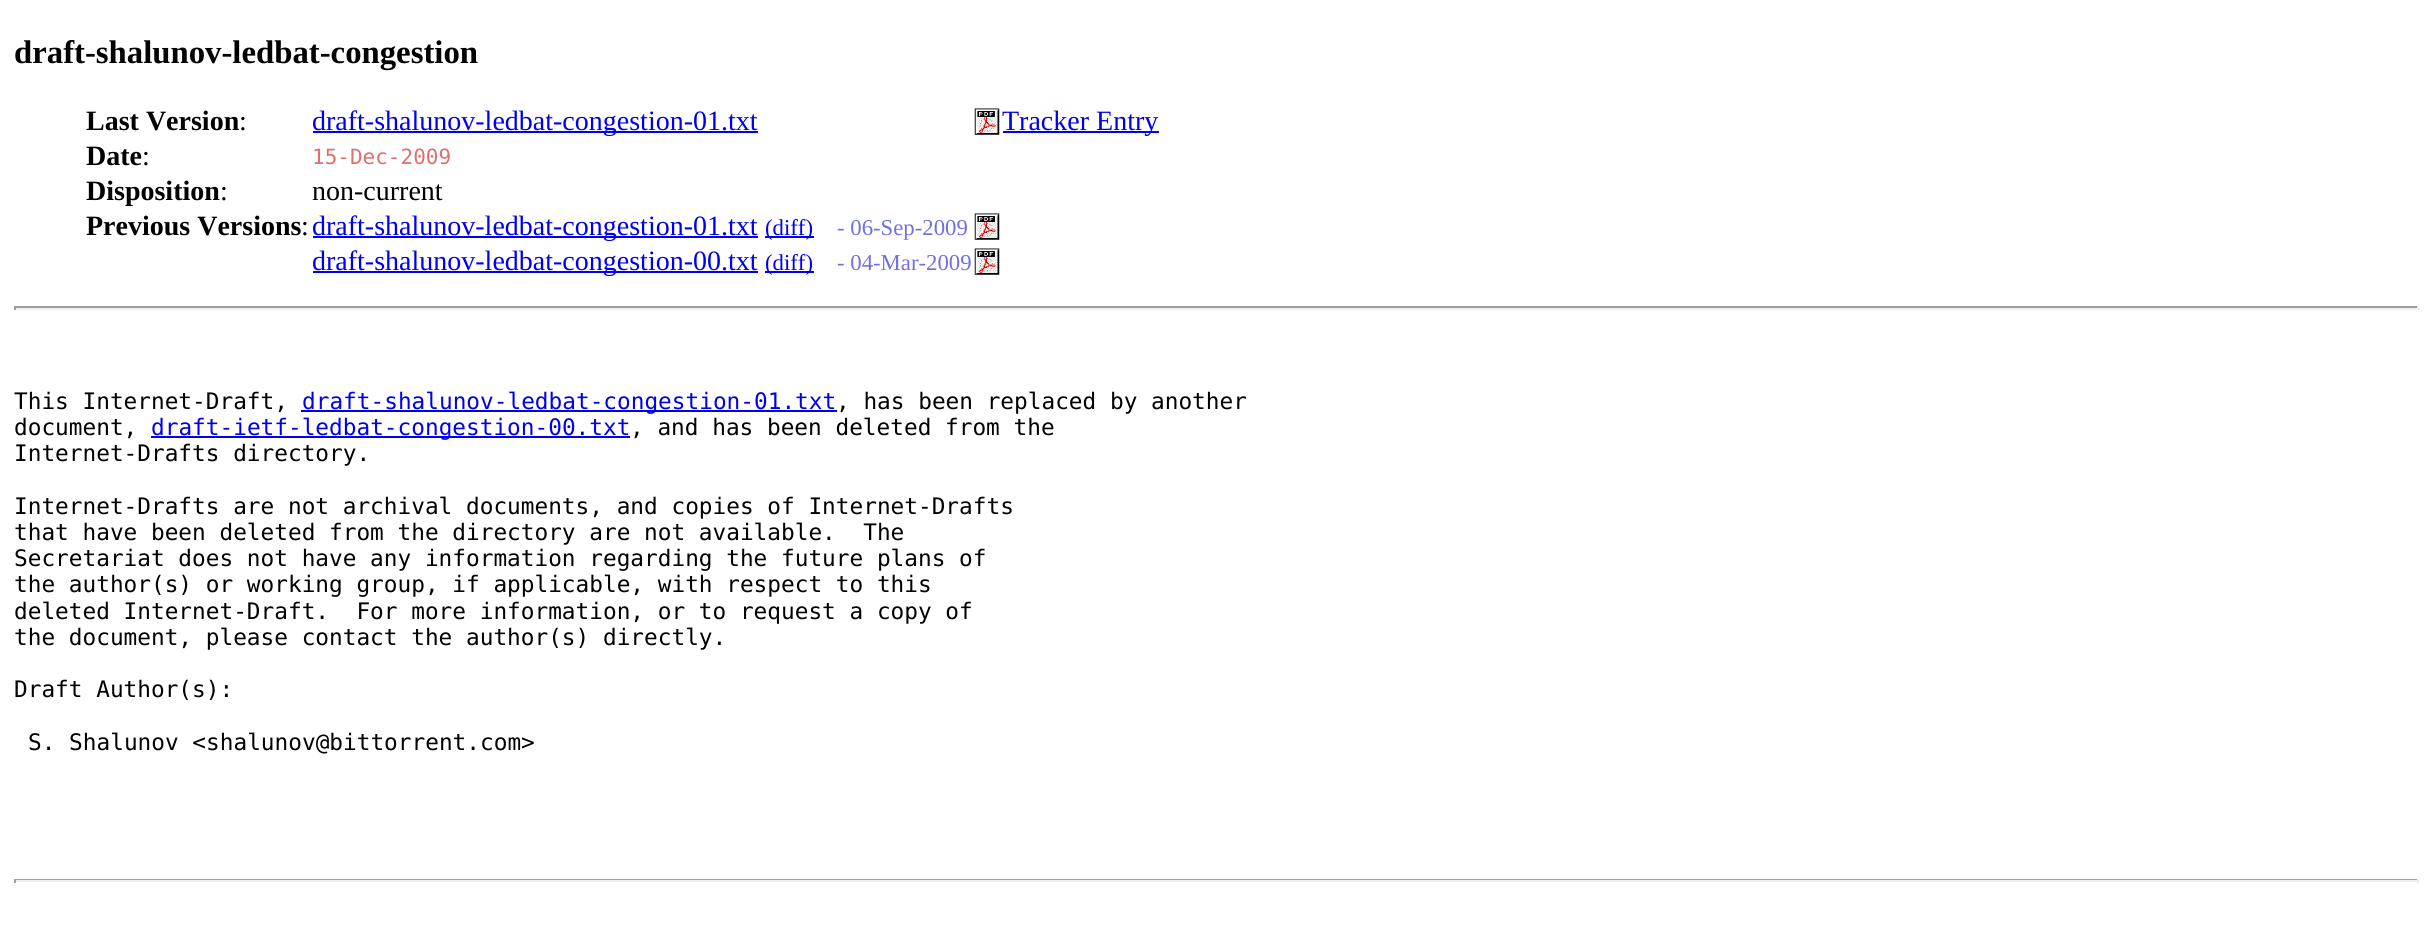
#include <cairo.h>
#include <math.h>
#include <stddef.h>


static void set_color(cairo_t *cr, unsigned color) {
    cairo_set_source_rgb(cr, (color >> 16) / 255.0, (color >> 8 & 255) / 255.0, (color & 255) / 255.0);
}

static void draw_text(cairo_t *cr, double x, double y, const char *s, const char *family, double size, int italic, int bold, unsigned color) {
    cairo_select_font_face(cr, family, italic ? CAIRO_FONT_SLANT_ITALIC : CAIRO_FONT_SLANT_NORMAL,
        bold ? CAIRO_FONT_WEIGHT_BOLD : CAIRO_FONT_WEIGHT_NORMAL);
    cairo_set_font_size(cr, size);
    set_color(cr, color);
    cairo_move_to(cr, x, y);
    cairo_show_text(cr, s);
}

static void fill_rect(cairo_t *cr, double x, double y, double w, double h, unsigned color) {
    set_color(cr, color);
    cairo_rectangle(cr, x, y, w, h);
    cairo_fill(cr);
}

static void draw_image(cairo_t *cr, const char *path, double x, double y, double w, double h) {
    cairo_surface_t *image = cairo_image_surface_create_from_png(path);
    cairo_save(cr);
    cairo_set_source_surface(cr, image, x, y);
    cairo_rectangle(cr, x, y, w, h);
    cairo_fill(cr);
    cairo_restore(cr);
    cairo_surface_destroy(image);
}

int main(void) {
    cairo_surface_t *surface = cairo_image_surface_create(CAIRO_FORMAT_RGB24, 2431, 948);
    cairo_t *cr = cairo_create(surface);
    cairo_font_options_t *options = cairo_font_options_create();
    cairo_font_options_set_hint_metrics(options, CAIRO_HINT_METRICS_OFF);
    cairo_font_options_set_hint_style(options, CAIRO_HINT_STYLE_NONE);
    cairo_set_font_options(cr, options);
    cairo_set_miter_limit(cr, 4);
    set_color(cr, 0xFFFFFF);
    cairo_paint(cr);
    draw_text(cr, 14, 63, "draft-shalunov-ledbat-congestion", "Liberation Serif", 32.75, 0, 1, 0x000000);
    draw_text(cr, 86, 130, "Last Version", "Liberation Serif", 28, 0, 1, 0x000000);
    draw_text(cr, 239, 130, ":", "Liberation Serif", 28, 0, 0, 0x000000);
    fill_rect(cr, 313, 131, 445, 2, 0x0000EE);
    draw_text(cr, 312, 130, "draft-shalunov-ledbat-congestion-01.txt", "Liberation Serif", 28, 0, 0, 0x0000EE);
    draw_image(cr, "assets/img1.png", 974, 108, 26, 27);
    fill_rect(cr, 1003, 131, 156, 2, 0x0000EE);
    draw_text(cr, 1002, 130, "Tracker Entry", "Liberation Serif", 28, 0, 0, 0x0000EE);
    draw_text(cr, 86, 165, "Date", "Liberation Serif", 28, 0, 1, 0x000000);
    draw_text(cr, 142, 165, ":", "Liberation Serif", 28, 0, 0, 0x000000);
    draw_text(cr, 312, 164, "15-Dec-2009", "DejaVu Sans Mono", 21, 0, 0, 0xE07070);
    draw_text(cr, 86, 200, "Disposition", "Liberation Serif", 28, 0, 1, 0x000000);
    draw_text(cr, 220, 200, ":", "Liberation Serif", 28, 0, 0, 0x000000);
    draw_text(cr, 312, 200, "non-current", "Liberation Serif", 28, 0, 0, 0x000000);
    draw_text(cr, 86, 235, "Previous Versions", "Liberation Serif", 28, 0, 1, 0x000000);
    draw_text(cr, 301, 235, ":", "Liberation Serif", 28, 0, 0, 0x000000);
    fill_rect(cr, 313, 236, 445, 2, 0x0000EE);
    draw_text(cr, 312, 235, "draft-shalunov-ledbat-congestion-01.txt", "Liberation Serif", 28, 0, 0, 0x0000EE);
    fill_rect(cr, 765, 236, 49, 2, 0x0000EE);
    draw_text(cr, 765, 235, "(diff)", "Liberation Serif", 22.75, 0, 0, 0x0000EE);
    draw_text(cr, 837, 235, "- 06-Sep-2009", "Liberation Serif", 22.75, 0, 0, 0x7070E0);
    draw_image(cr, "assets/img1.png", 974, 213, 26, 27);
    fill_rect(cr, 313, 271, 445, 2, 0x0000EE);
    draw_text(cr, 312, 270, "draft-shalunov-ledbat-congestion-00.txt", "Liberation Serif", 28, 0, 0, 0x0000EE);
    fill_rect(cr, 765, 271, 49, 2, 0x0000EE);
    draw_text(cr, 765, 270, "(diff)", "Liberation Serif", 22.75, 0, 0, 0x0000EE);
    draw_text(cr, 837, 270, "- 04-Mar-2009", "Liberation Serif", 22.75, 0, 0, 0x7070E0);
    draw_image(cr, "assets/img1.png", 974, 248, 26, 27);
    fill_rect(cr, 14, 306, 2405, 2, 0x9F9F9F);
    fill_rect(cr, 2417, 306, 2, 4, 0xEEEEEE);
    fill_rect(cr, 14, 308, 2405, 2, 0xEEEEEE);
    fill_rect(cr, 14, 306, 2, 4, 0x9F9F9F);
    draw_text(cr, 14, 409, "This Internet-Draft,", "DejaVu Sans Mono", 22.75, 0, 0, 0x000000);
    fill_rect(cr, 301, 410, 536, 2, 0x0000EE);
    draw_text(cr, 302, 409, "draft-shalunov-ledbat-congestion-01.txt", "DejaVu Sans Mono", 22.75, 0, 0, 0x0000EE);
    draw_text(cr, 836, 409, ", has been replaced by another", "DejaVu Sans Mono", 22.75, 0, 0, 0x000000);
    draw_text(cr, 14, 435, "document,", "DejaVu Sans Mono", 22.75, 0, 0, 0x000000);
    fill_rect(cr, 151, 436, 479, 2, 0x0000EE);
    draw_text(cr, 151, 435, "draft-ietf-ledbat-congestion-00.txt", "DejaVu Sans Mono", 22.75, 0, 0, 0x0000EE);
    draw_text(cr, 630, 435, ", and has been deleted from the", "DejaVu Sans Mono", 22.75, 0, 0, 0x000000);
    draw_text(cr, 14, 461, "Internet-Drafts directory.", "DejaVu Sans Mono", 22.75, 0, 0, 0x000000);
    draw_text(cr, 14, 514, "Internet-Drafts are not archival documents, and copies of Internet-Drafts", "DejaVu Sans Mono", 22.75, 0, 0, 0x000000);
    draw_text(cr, 14, 540, "that have been deleted from the directory are not available.  The", "DejaVu Sans Mono", 22.75, 0, 0, 0x000000);
    draw_text(cr, 14, 566, "Secretariat does not have any information regarding the future plans of", "DejaVu Sans Mono", 22.75, 0, 0, 0x000000);
    draw_text(cr, 14, 592, "the author(s) or working group, if applicable, with respect to this", "DejaVu Sans Mono", 22.75, 0, 0, 0x000000);
    draw_text(cr, 14, 619, "deleted Internet-Draft.  For more information, or to request a copy of", "DejaVu Sans Mono", 22.75, 0, 0, 0x000000);
    draw_text(cr, 14, 645, "the document, please contact the author(s) directly.", "DejaVu Sans Mono", 22.75, 0, 0, 0x000000);
    draw_text(cr, 14, 697, "Draft Author(s):", "DejaVu Sans Mono", 22.75, 0, 0, 0x000000);
    draw_text(cr, 28, 750, "S. Shalunov <shalunov@bittorrent.com>", "DejaVu Sans Mono", 22.75, 0, 0, 0x000000);
    fill_rect(cr, 14, 879, 2405, 1, 0x9F9F9F);
    fill_rect(cr, 2417, 879, 2, 4, 0xEEEEEE);
    fill_rect(cr, 14, 880, 2405, 2, 0xEEEEEE);
    fill_rect(cr, 14, 879, 2, 4, 0x9F9F9F);
    cairo_surface_write_to_png(surface, "output.png");
    cairo_font_options_destroy(options);
    cairo_destroy(cr);
    cairo_surface_destroy(surface);
    return 0;
}
